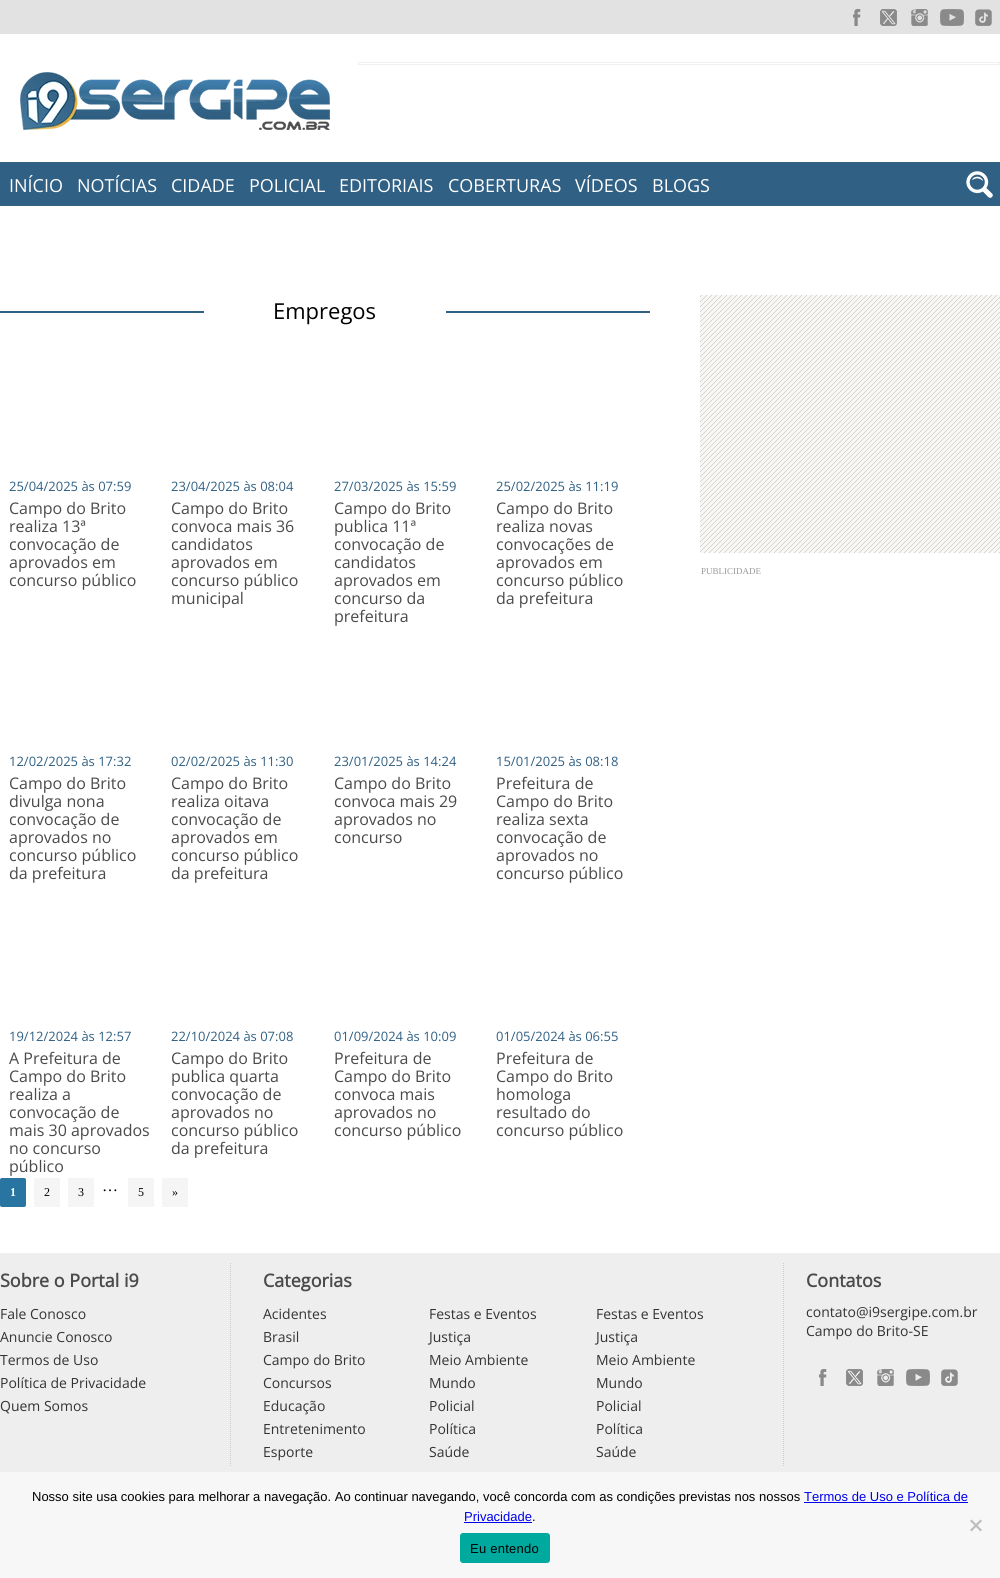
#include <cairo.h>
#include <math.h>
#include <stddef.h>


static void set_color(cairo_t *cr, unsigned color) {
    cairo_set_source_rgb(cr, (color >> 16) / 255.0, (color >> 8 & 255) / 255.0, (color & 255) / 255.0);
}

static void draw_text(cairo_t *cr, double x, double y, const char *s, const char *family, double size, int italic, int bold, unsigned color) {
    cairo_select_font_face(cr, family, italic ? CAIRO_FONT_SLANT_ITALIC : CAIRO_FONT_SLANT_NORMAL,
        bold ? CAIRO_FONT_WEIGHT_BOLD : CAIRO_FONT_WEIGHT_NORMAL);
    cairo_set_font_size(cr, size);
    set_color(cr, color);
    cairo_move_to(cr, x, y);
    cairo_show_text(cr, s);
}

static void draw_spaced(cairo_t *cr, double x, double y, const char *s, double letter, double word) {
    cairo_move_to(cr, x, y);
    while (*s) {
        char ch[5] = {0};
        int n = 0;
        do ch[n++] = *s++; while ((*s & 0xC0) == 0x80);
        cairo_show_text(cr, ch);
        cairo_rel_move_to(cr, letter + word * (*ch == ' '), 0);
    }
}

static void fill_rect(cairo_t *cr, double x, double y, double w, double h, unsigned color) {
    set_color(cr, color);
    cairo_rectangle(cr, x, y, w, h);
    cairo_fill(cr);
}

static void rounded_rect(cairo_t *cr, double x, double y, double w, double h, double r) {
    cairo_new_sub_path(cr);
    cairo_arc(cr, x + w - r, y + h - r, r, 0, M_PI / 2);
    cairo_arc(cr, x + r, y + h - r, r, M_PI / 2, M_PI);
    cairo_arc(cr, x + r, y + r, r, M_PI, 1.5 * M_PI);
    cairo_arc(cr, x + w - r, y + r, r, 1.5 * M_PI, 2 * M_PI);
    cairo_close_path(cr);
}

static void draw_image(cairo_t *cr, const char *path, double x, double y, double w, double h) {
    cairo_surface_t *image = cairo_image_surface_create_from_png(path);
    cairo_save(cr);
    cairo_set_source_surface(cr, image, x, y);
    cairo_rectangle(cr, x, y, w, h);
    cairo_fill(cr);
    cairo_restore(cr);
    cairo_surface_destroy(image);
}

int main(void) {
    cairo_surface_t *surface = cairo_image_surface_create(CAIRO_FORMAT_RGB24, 1000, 1578);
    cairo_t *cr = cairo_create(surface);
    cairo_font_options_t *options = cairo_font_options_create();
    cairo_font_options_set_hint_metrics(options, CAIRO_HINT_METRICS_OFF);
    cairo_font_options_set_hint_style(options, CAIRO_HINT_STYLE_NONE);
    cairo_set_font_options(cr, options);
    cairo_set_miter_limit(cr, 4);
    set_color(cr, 0xFFFFFF);
    cairo_paint(cr);
    fill_rect(cr, 0, 1178, 26, 29, 0xF5F5F5);
    fill_rect(cr, 0, 0, 1000, 34, 0xE2E2E2);
    draw_image(cr, "assets/img1.png", 853, 9, 8, 17);
    draw_image(cr, "assets/img2.png", 880, 9, 17, 17);
    draw_image(cr, "assets/img3.png", 911, 9, 17, 17);
    draw_image(cr, "assets/img4.png", 940, 9, 24, 17);
    draw_image(cr, "assets/img5.png", 975, 9, 17, 17);
    cairo_rectangle(cr, 358.5, 62.5, 641, 2);
    set_color(cr, 0xF0F0F0);
    cairo_set_line_width(cr, 1);
    cairo_stroke(cr);
    draw_image(cr, "assets/img6.png", 20, 72, 310, 58);
    fill_rect(cr, 0, 162, 1000, 44, 0x306083);
    draw_text(cr, 9, 192, "INÍCIO", "Open Sans", 18, 0, 0, 0xFFFFFF);
    draw_text(cr, 77, 192, "NOTÍCIAS", "Open Sans", 18, 0, 0, 0xFFFFFF);
    draw_text(cr, 171, 192, "CIDADE", "Open Sans", 18, 0, 0, 0xFFFFFF);
    draw_text(cr, 249, 192, "POLICIAL", "Open Sans", 18, 0, 0, 0xFFFFFF);
    draw_text(cr, 339, 192, "EDITORIAIS", "Open Sans", 18, 0, 0, 0xFFFFFF);
    draw_text(cr, 448, 192, "COBERTURAS", "Open Sans", 18, 0, 0, 0xFFFFFF);
    draw_text(cr, 575, 192, "VÍDEOS", "Open Sans", 18, 0, 0, 0xFFFFFF);
    draw_text(cr, 652, 192, "BLOGS", "Open Sans", 18, 0, 0, 0xFFFFFF);
    draw_image(cr, "assets/img7.png", 966, 171, 27, 27);
    fill_rect(cr, 0, 311, 204, 2, 0x306083);
    draw_text(cr, 273, 319, "Empregos", "Open Sans", 22, 0, 0, 0x000000);
    fill_rect(cr, 446, 311, 204, 2, 0x306083);
    draw_text(cr, 9, 491, "25/04/2025 às 07:59", "Open Sans", 13, 0, 0, 0x306083);
    draw_text(cr, 9, 514, "Campo do Brito", "Open Sans", 16, 0, 0, 0x4A4A4A);
    draw_text(cr, 9, 532, "realiza 13ª", "Open Sans", 16, 0, 0, 0x4A4A4A);
    draw_text(cr, 9, 550, "convocação de", "Open Sans", 16, 0, 0, 0x4A4A4A);
    draw_text(cr, 9, 568, "aprovados em", "Open Sans", 16, 0, 0, 0x4A4A4A);
    draw_text(cr, 9, 586, "concurso público", "Open Sans", 16, 0, 0, 0x4A4A4A);
    draw_text(cr, 171, 491, "23/04/2025 às 08:04", "Open Sans", 13, 0, 0, 0x306083);
    draw_text(cr, 171, 514, "Campo do Brito", "Open Sans", 16, 0, 0, 0x4A4A4A);
    draw_text(cr, 171, 532, "convoca mais 36", "Open Sans", 16, 0, 0, 0x4A4A4A);
    draw_text(cr, 171, 550, "candidatos", "Open Sans", 16, 0, 0, 0x4A4A4A);
    draw_text(cr, 171, 568, "aprovados em", "Open Sans", 16, 0, 0, 0x4A4A4A);
    draw_text(cr, 171, 586, "concurso público", "Open Sans", 16, 0, 0, 0x4A4A4A);
    draw_text(cr, 171, 604, "municipal", "Open Sans", 16, 0, 0, 0x4A4A4A);
    draw_text(cr, 334, 491, "27/03/2025 às 15:59", "Open Sans", 13, 0, 0, 0x306083);
    draw_text(cr, 334, 514, "Campo do Brito", "Open Sans", 16, 0, 0, 0x4A4A4A);
    draw_text(cr, 334, 532, "publica 11ª", "Open Sans", 16, 0, 0, 0x4A4A4A);
    draw_text(cr, 334, 550, "convocação de", "Open Sans", 16, 0, 0, 0x4A4A4A);
    draw_text(cr, 334, 568, "candidatos", "Open Sans", 16, 0, 0, 0x4A4A4A);
    draw_text(cr, 334, 586, "aprovados em", "Open Sans", 16, 0, 0, 0x4A4A4A);
    draw_text(cr, 334, 604, "concurso da", "Open Sans", 16, 0, 0, 0x4A4A4A);
    draw_text(cr, 334, 622, "prefeitura", "Open Sans", 16, 0, 0, 0x4A4A4A);
    draw_text(cr, 496, 491, "25/02/2025 às 11:19", "Open Sans", 13, 0, 0, 0x306083);
    draw_text(cr, 496, 514, "Campo do Brito", "Open Sans", 16, 0, 0, 0x4A4A4A);
    draw_text(cr, 496, 532, "realiza novas", "Open Sans", 16, 0, 0, 0x4A4A4A);
    draw_text(cr, 496, 550, "convocações de", "Open Sans", 16, 0, 0, 0x4A4A4A);
    draw_text(cr, 496, 568, "aprovados em", "Open Sans", 16, 0, 0, 0x4A4A4A);
    draw_text(cr, 496, 586, "concurso público", "Open Sans", 16, 0, 0, 0x4A4A4A);
    draw_text(cr, 496, 604, "da prefeitura", "Open Sans", 16, 0, 0, 0x4A4A4A);
    draw_text(cr, 9, 766, "12/02/2025 às 17:32", "Open Sans", 13, 0, 0, 0x306083);
    draw_text(cr, 9, 789, "Campo do Brito", "Open Sans", 16, 0, 0, 0x4A4A4A);
    draw_text(cr, 9, 807, "divulga nona", "Open Sans", 16, 0, 0, 0x4A4A4A);
    draw_text(cr, 9, 825, "convocação de", "Open Sans", 16, 0, 0, 0x4A4A4A);
    draw_text(cr, 9, 843, "aprovados no", "Open Sans", 16, 0, 0, 0x4A4A4A);
    draw_text(cr, 9, 861, "concurso público", "Open Sans", 16, 0, 0, 0x4A4A4A);
    draw_text(cr, 9, 879, "da prefeitura", "Open Sans", 16, 0, 0, 0x4A4A4A);
    draw_text(cr, 171, 766, "02/02/2025 às 11:30", "Open Sans", 13, 0, 0, 0x306083);
    draw_text(cr, 171, 789, "Campo do Brito", "Open Sans", 16, 0, 0, 0x4A4A4A);
    draw_text(cr, 171, 807, "realiza oitava", "Open Sans", 16, 0, 0, 0x4A4A4A);
    draw_text(cr, 171, 825, "convocação de", "Open Sans", 16, 0, 0, 0x4A4A4A);
    draw_text(cr, 171, 843, "aprovados em", "Open Sans", 16, 0, 0, 0x4A4A4A);
    draw_text(cr, 171, 861, "concurso público", "Open Sans", 16, 0, 0, 0x4A4A4A);
    draw_text(cr, 171, 879, "da prefeitura", "Open Sans", 16, 0, 0, 0x4A4A4A);
    draw_text(cr, 334, 766, "23/01/2025 às 14:24", "Open Sans", 13, 0, 0, 0x306083);
    draw_text(cr, 334, 789, "Campo do Brito", "Open Sans", 16, 0, 0, 0x4A4A4A);
    draw_text(cr, 334, 807, "convoca mais 29", "Open Sans", 16, 0, 0, 0x4A4A4A);
    draw_text(cr, 334, 825, "aprovados no", "Open Sans", 16, 0, 0, 0x4A4A4A);
    draw_text(cr, 334, 843, "concurso", "Open Sans", 16, 0, 0, 0x4A4A4A);
    draw_text(cr, 496, 766, "15/01/2025 às 08:18", "Open Sans", 13, 0, 0, 0x306083);
    draw_text(cr, 496, 789, "Prefeitura de", "Open Sans", 16, 0, 0, 0x4A4A4A);
    draw_text(cr, 496, 807, "Campo do Brito", "Open Sans", 16, 0, 0, 0x4A4A4A);
    draw_text(cr, 496, 825, "realiza sexta", "Open Sans", 16, 0, 0, 0x4A4A4A);
    draw_text(cr, 496, 843, "convocação de", "Open Sans", 16, 0, 0, 0x4A4A4A);
    draw_text(cr, 496, 861, "aprovados no", "Open Sans", 16, 0, 0, 0x4A4A4A);
    draw_text(cr, 496, 879, "concurso público", "Open Sans", 16, 0, 0, 0x4A4A4A);
    draw_text(cr, 9, 1041, "19/12/2024 às 12:57", "Open Sans", 13, 0, 0, 0x306083);
    draw_text(cr, 9, 1064, "A Prefeitura de", "Open Sans", 16, 0, 0, 0x4A4A4A);
    draw_text(cr, 9, 1082, "Campo do Brito", "Open Sans", 16, 0, 0, 0x4A4A4A);
    draw_text(cr, 9, 1100, "realiza a", "Open Sans", 16, 0, 0, 0x4A4A4A);
    draw_text(cr, 9, 1118, "convocação de", "Open Sans", 16, 0, 0, 0x4A4A4A);
    draw_text(cr, 9, 1136, "mais 30 aprovados", "Open Sans", 16, 0, 0, 0x4A4A4A);
    draw_text(cr, 9, 1154, "no concurso", "Open Sans", 16, 0, 0, 0x4A4A4A);
    draw_text(cr, 9, 1172, "público", "Open Sans", 16, 0, 0, 0x4A4A4A);
    draw_text(cr, 171, 1041, "22/10/2024 às 07:08", "Open Sans", 13, 0, 0, 0x306083);
    draw_text(cr, 171, 1064, "Campo do Brito", "Open Sans", 16, 0, 0, 0x4A4A4A);
    draw_text(cr, 171, 1082, "publica quarta", "Open Sans", 16, 0, 0, 0x4A4A4A);
    draw_text(cr, 171, 1100, "convocação de", "Open Sans", 16, 0, 0, 0x4A4A4A);
    draw_text(cr, 171, 1118, "aprovados no", "Open Sans", 16, 0, 0, 0x4A4A4A);
    draw_text(cr, 171, 1136, "concurso público", "Open Sans", 16, 0, 0, 0x4A4A4A);
    draw_text(cr, 171, 1154, "da prefeitura", "Open Sans", 16, 0, 0, 0x4A4A4A);
    draw_text(cr, 334, 1041, "01/09/2024 às 10:09", "Open Sans", 13, 0, 0, 0x306083);
    draw_text(cr, 334, 1064, "Prefeitura de", "Open Sans", 16, 0, 0, 0x4A4A4A);
    draw_text(cr, 334, 1082, "Campo do Brito", "Open Sans", 16, 0, 0, 0x4A4A4A);
    draw_text(cr, 334, 1100, "convoca mais", "Open Sans", 16, 0, 0, 0x4A4A4A);
    draw_text(cr, 334, 1118, "aprovados no", "Open Sans", 16, 0, 0, 0x4A4A4A);
    draw_text(cr, 334, 1136, "concurso público", "Open Sans", 16, 0, 0, 0x4A4A4A);
    draw_text(cr, 496, 1041, "01/05/2024 às 06:55", "Open Sans", 13, 0, 0, 0x306083);
    draw_text(cr, 496, 1064, "Prefeitura de", "Open Sans", 16, 0, 0, 0x4A4A4A);
    draw_text(cr, 496, 1082, "Campo do Brito", "Open Sans", 16, 0, 0, 0x4A4A4A);
    draw_text(cr, 496, 1100, "homologa", "Open Sans", 16, 0, 0, 0x4A4A4A);
    draw_text(cr, 496, 1118, "resultado do", "Open Sans", 16, 0, 0, 0x4A4A4A);
    draw_text(cr, 496, 1136, "concurso público", "Open Sans", 16, 0, 0, 0x4A4A4A);
    set_color(cr, 0x2875A2);
    rounded_rect(cr, 0, 1178, 26, 29, 2);
    cairo_fill(cr);
    draw_text(cr, 10, 1196, "1", "Liberation Serif", 12, 0, 1, 0xFFFFFF);
    fill_rect(cr, 34, 1178, 26, 29, 0xF5F5F5);
    draw_text(cr, 44, 1196, "2", "Liberation Serif", 12, 0, 0, 0x000000);
    fill_rect(cr, 68, 1178, 26, 29, 0xF5F5F5);
    draw_text(cr, 78, 1196, "3", "Liberation Serif", 12, 0, 0, 0x000000);
    cairo_set_font_size(cr, 16);
    draw_spaced(cr, 102, 1191, "…", 1, 0);
    fill_rect(cr, 128, 1178, 26, 29, 0xF5F5F5);
    draw_text(cr, 138, 1196, "5", "Liberation Serif", 12, 0, 0, 0x000000);
    fill_rect(cr, 162, 1178, 26, 29, 0xF5F5F5);
    draw_text(cr, 172, 1196, "»", "Liberation Serif", 12, 0, 0, 0x000000);
    draw_image(cr, "assets/img8.png", 700, 295, 300, 258);
    draw_text(cr, 701, 574, "PUBLICIDADE", "Liberation Serif", 9, 0, 0, 0x999999);
    fill_rect(cr, 0, 1253, 1000, 219, 0xEEEEEE);
    draw_text(cr, 0, 1287, "Sobre o Portal i9", "Open Sans", 18, 0, 1, 0x4A4A4A);
    draw_text(cr, 0, 1319, "Fale Conosco", "Open Sans", 14, 0, 0, 0x333333);
    draw_text(cr, 0, 1342, "Anuncie Conosco", "Open Sans", 14, 0, 0, 0x333333);
    draw_text(cr, 0, 1365, "Termos de Uso", "Open Sans", 14, 0, 0, 0x333333);
    draw_text(cr, 0, 1388, "Política de Privacidade", "Open Sans", 14, 0, 0, 0x333333);
    draw_text(cr, 0, 1411, "Quem Somos", "Open Sans", 14, 0, 0, 0x333333);
    cairo_new_path(cr);
    cairo_move_to(cr, 230.5, 1263);
    cairo_line_to(cr, 230.5, 1467);
    set_color(cr, 0xCCCCCC);
    cairo_set_dash(cr, (double[]){1, 1}, 2, 0);
    cairo_stroke(cr);
    draw_text(cr, 263, 1287, "Categorias", "Open Sans", 18, 0, 1, 0x4A4A4A);
    draw_text(cr, 263, 1319, "Acidentes", "Open Sans", 14, 0, 0, 0x333333);
    draw_text(cr, 263, 1342, "Brasil", "Open Sans", 14, 0, 0, 0x333333);
    draw_text(cr, 263, 1365, "Campo do Brito", "Open Sans", 14, 0, 0, 0x333333);
    draw_text(cr, 263, 1388, "Concursos", "Open Sans", 14, 0, 0, 0x333333);
    draw_text(cr, 263, 1411, "Educação", "Open Sans", 14, 0, 0, 0x333333);
    draw_text(cr, 263, 1434, "Entretenimento", "Open Sans", 14, 0, 0, 0x333333);
    draw_text(cr, 263, 1457, "Esporte", "Open Sans", 14, 0, 0, 0x333333);
    draw_text(cr, 429, 1319, "Festas e Eventos", "Open Sans", 14, 0, 0, 0x333333);
    draw_text(cr, 429, 1342, "Justiça", "Open Sans", 14, 0, 0, 0x333333);
    draw_text(cr, 429, 1365, "Meio Ambiente", "Open Sans", 14, 0, 0, 0x333333);
    draw_text(cr, 429, 1388, "Mundo", "Open Sans", 14, 0, 0, 0x333333);
    draw_text(cr, 429, 1411, "Policial", "Open Sans", 14, 0, 0, 0x333333);
    draw_text(cr, 429, 1434, "Política", "Open Sans", 14, 0, 0, 0x333333);
    draw_text(cr, 429, 1457, "Saúde", "Open Sans", 14, 0, 0, 0x333333);
    draw_text(cr, 596, 1319, "Festas e Eventos", "Open Sans", 14, 0, 0, 0x333333);
    draw_text(cr, 596, 1342, "Justiça", "Open Sans", 14, 0, 0, 0x333333);
    draw_text(cr, 596, 1365, "Meio Ambiente", "Open Sans", 14, 0, 0, 0x333333);
    draw_text(cr, 596, 1388, "Mundo", "Open Sans", 14, 0, 0, 0x333333);
    draw_text(cr, 596, 1411, "Policial", "Open Sans", 14, 0, 0, 0x333333);
    draw_text(cr, 596, 1434, "Política", "Open Sans", 14, 0, 0, 0x333333);
    draw_text(cr, 596, 1457, "Saúde", "Open Sans", 14, 0, 0, 0x333333);
    cairo_new_path(cr);
    cairo_move_to(cr, 783.5, 1263);
    cairo_line_to(cr, 783.5, 1467);
    set_color(cr, 0xCCCCCC);
    cairo_stroke(cr);
    draw_text(cr, 806, 1287, "Contatos", "Open Sans", 18, 0, 1, 0x4A4A4A);
    draw_text(cr, 806, 1317, "contato@i9sergipe.com.br", "Open Sans", 14, 0, 0, 0x333333);
    draw_text(cr, 806, 1336, "Campo do Brito-SE", "Open Sans", 14, 0, 0, 0x333333);
    draw_image(cr, "assets/img9.png", 819, 1369, 8, 17);
    draw_image(cr, "assets/img10.png", 846, 1369, 17, 17);
    draw_image(cr, "assets/img11.png", 877, 1369, 17, 17);
    draw_image(cr, "assets/img12.png", 906, 1369, 24, 17);
    draw_image(cr, "assets/img13.png", 941, 1369, 17, 17);
    fill_rect(cr, 0, 1472, 1000, 106, 0xF7F7F7);
    draw_text(cr, 32, 1501, "Nosso site usa cookies para melhorar a navegação. Ao continuar navegando, você concorda com as condições previstas nos nossos", "Liberation Sans", 13, 0, 0, 0x000000);
    draw_text(cr, 804, 1501, "Termos de Uso e Política de", "Liberation Sans", 13, 0, 0, 0x0000EE);
    fill_rect(cr, 804, 1502, 164, 1, 0x0000EE);
    draw_text(cr, 464, 1521, "Privacidade", "Liberation Sans", 13, 0, 0, 0x0000EE);
    fill_rect(cr, 464, 1522, 68, 1, 0x0000EE);
    draw_text(cr, 532, 1521, ".", "Liberation Sans", 13, 0, 0, 0x000000);
    set_color(cr, 0xBCBCBC);
    cairo_new_path(cr);
    cairo_move_to(cr, 980.5, 1519.5);
    cairo_line_to(cr, 982, 1521);
    cairo_line_to(cr, 971.5, 1531.5);
    cairo_line_to(cr, 970, 1530);
    cairo_close_path(cr);
    cairo_fill(cr);
    cairo_new_path(cr);
    cairo_move_to(cr, 970, 1521);
    cairo_line_to(cr, 971.5, 1519.5);
    cairo_line_to(cr, 982, 1530);
    cairo_line_to(cr, 980.5, 1531.5);
    cairo_close_path(cr);
    cairo_fill(cr);
    set_color(cr, 0x00A99D);
    rounded_rect(cr, 460, 1533, 90, 30, 3);
    cairo_fill(cr);
    set_color(cr, 0x000000);
    draw_spaced(cr, 470, 1553, "Eu entendo", 0.25, 0);
    cairo_surface_write_to_png(surface, "output.png");
    cairo_font_options_destroy(options);
    cairo_destroy(cr);
    cairo_surface_destroy(surface);
    return 0;
}
